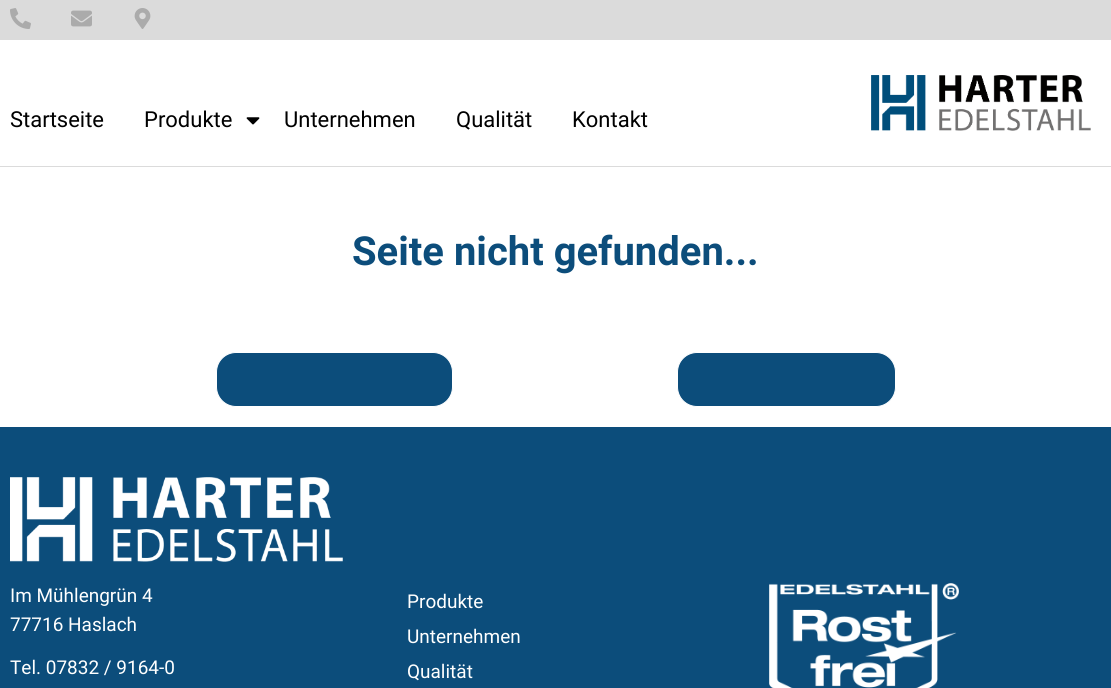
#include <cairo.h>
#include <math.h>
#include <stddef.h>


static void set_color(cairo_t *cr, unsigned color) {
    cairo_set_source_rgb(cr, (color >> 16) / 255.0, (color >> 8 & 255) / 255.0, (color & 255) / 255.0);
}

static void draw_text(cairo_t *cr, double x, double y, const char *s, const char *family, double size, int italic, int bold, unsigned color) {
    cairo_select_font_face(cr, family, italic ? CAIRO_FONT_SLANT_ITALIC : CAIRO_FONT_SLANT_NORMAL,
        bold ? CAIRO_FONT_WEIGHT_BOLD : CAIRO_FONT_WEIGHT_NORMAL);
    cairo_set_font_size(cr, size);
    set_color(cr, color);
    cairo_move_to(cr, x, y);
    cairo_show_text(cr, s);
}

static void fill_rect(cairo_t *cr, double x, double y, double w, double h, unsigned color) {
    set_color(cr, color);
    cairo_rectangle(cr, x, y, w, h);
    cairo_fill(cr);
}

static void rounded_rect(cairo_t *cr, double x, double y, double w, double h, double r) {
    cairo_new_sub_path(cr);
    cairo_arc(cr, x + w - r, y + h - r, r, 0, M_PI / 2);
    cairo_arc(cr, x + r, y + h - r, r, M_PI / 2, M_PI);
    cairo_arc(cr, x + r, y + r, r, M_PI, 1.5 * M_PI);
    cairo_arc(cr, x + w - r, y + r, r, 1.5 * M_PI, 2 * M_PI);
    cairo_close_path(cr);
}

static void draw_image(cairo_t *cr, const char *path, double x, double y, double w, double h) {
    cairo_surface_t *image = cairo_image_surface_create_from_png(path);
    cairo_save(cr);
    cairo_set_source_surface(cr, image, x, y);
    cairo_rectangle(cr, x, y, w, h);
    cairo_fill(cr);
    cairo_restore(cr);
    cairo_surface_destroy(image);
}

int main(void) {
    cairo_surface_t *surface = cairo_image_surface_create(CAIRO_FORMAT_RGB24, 1111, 688);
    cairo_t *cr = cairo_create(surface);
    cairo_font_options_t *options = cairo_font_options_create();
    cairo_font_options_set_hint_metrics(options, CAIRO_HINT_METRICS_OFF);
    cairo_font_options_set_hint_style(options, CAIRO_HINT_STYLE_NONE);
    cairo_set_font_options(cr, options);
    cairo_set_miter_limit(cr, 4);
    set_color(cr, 0xFFFFFF);
    cairo_paint(cr);
    fill_rect(cr, 0, 0, 1111, 40, 0xDBDBDB);
    draw_image(cr, "assets/img1.png", 10, 8, 21, 21);
    draw_image(cr, "assets/img2.png", 71, 10, 21, 17);
    draw_image(cr, "assets/img3.png", 134, 8, 17, 21);
    fill_rect(cr, 0, 166, 1111, 1, 0xDBDBDB);
    draw_text(cr, 10, 127, "Startseite", "Roboto", 22, 0, 0, 0x000000);
    draw_text(cr, 144, 127, "Produkte", "Roboto", 22, 0, 0, 0x000000);
    draw_image(cr, "assets/img4.png", 246, 117, 14, 8);
    draw_text(cr, 284, 127, "Unternehmen", "Roboto", 22, 0, 0, 0x000000);
    draw_text(cr, 456, 127, "Qualität", "Roboto", 22, 0, 0, 0x000000);
    draw_text(cr, 572, 127, "Kontakt", "Roboto", 22, 0, 0, 0x000000);
    draw_image(cr, "assets/img5.png", 871, 75, 220, 56);
    draw_text(cr, 352, 265, "Seite nicht gefunden...", "Roboto", 40, 0, 1, 0x0C4D7B);
    rounded_rect(cr, 216.5, 352.5, 236, 54, 19.5);
    cairo_fill_preserve(cr);
    set_color(cr, 0xFFFFFF);
    cairo_set_line_width(cr, 1);
    cairo_stroke(cr);
    set_color(cr, 0x0C4D7B);
    rounded_rect(cr, 677.5, 352.5, 218, 54, 19.5);
    cairo_fill_preserve(cr);
    set_color(cr, 0xFFFFFF);
    cairo_stroke(cr);
    fill_rect(cr, 0, 427, 1111, 261, 0x0C4D7B);
    draw_image(cr, "assets/img6.png", 10, 477, 333, 85);
    draw_text(cr, 10, 602, "Im Mühlengrün 4", "Roboto", 19, 0, 0, 0xFFFFFF);
    draw_text(cr, 10, 631, "77716 Haslach", "Roboto", 19, 0, 0, 0xFFFFFF);
    draw_text(cr, 10, 674, "Tel. 07832 / 9164-0", "Roboto", 19, 0, 0, 0xFFFFFF);
    draw_text(cr, 407, 608, "Produkte", "Roboto", 19, 0, 0, 0xFFFFFF);
    draw_text(cr, 407, 643, "Unternehmen", "Roboto", 19, 0, 0, 0xFFFFFF);
    draw_text(cr, 407, 678, "Qualität", "Roboto", 19, 0, 0, 0xFFFFFF);
    draw_image(cr, "assets/img7.png", 769, 583, 190, 105);
    cairo_surface_write_to_png(surface, "output.png");
    cairo_font_options_destroy(options);
    cairo_destroy(cr);
    cairo_surface_destroy(surface);
    return 0;
}
